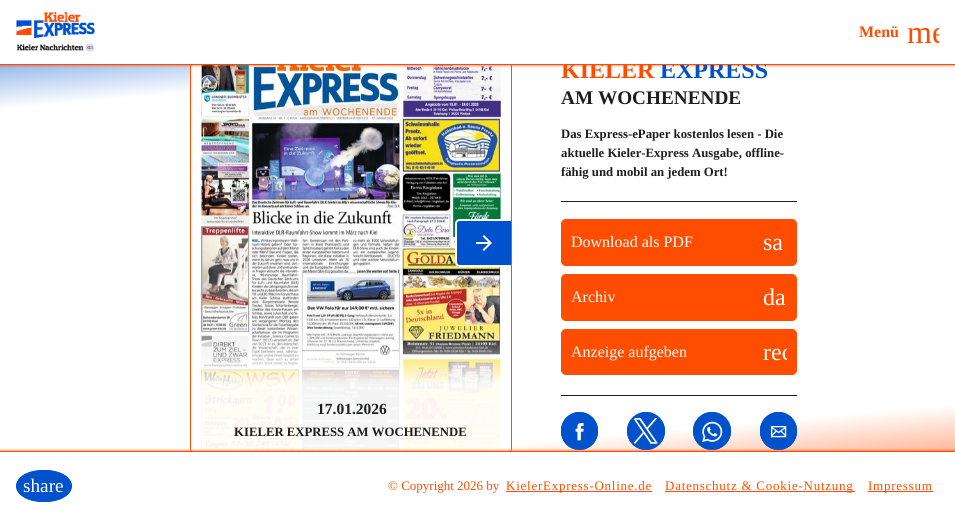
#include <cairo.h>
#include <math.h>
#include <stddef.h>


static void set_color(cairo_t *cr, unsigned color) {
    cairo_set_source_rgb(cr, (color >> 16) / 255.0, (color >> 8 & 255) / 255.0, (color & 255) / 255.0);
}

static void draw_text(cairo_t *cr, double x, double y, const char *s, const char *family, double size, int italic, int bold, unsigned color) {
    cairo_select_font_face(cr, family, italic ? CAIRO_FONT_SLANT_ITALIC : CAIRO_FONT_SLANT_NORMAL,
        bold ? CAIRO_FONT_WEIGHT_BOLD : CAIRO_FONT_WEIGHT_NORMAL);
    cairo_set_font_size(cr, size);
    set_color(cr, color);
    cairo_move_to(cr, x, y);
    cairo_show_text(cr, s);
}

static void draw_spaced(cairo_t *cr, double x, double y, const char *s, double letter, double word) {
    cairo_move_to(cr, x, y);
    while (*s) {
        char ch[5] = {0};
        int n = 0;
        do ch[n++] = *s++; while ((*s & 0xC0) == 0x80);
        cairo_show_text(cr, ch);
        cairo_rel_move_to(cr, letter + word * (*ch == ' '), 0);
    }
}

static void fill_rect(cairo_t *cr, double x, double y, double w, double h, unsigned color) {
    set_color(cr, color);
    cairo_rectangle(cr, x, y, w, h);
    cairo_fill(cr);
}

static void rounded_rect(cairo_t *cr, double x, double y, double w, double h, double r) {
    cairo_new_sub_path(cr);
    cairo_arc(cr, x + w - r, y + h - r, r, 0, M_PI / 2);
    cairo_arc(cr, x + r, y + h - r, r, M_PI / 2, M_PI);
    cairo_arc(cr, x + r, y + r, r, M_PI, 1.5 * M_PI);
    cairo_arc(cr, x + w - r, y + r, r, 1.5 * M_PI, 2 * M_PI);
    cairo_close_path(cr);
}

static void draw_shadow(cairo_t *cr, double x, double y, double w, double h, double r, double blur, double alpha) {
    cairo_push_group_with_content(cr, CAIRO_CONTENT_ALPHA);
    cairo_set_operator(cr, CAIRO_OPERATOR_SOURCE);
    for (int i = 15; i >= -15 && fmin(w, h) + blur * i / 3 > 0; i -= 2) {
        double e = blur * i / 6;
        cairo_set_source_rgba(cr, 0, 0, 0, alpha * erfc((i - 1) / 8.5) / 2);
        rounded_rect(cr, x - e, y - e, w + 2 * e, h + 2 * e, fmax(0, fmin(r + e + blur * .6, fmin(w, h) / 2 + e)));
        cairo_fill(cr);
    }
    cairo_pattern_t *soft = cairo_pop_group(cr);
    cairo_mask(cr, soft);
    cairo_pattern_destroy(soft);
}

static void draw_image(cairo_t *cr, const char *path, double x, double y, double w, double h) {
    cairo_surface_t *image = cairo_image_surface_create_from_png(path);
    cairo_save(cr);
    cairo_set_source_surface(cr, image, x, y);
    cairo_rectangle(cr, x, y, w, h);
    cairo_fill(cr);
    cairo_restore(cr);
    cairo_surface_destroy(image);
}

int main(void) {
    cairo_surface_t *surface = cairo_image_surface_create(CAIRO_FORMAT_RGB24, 955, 520);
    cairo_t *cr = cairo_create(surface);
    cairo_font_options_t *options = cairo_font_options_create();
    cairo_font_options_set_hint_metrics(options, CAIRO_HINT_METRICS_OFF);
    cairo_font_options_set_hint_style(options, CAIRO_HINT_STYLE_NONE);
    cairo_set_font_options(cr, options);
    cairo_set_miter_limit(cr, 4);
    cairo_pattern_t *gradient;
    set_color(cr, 0xFFFFFF);
    cairo_paint(cr);
    gradient = cairo_pattern_create_linear(504, 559, 451, -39);
    cairo_pattern_add_color_stop_rgba(gradient, 0, 1, 0.302, 0, 1);
    cairo_pattern_add_color_stop_rgba(gradient, 0.19, 1, 1, 1, 1);
    cairo_pattern_add_color_stop_rgba(gradient, 0.82, 1, 1, 1, 1);
    cairo_pattern_add_color_stop_rgba(gradient, 1, 0, 0.322, 0.8, 1);
    cairo_set_source(cr, gradient);
    cairo_pattern_destroy(gradient);
    cairo_rectangle(cr, 0, 65, 955, 386);
    cairo_fill(cr);
    rounded_rect(cr, 190.5, -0.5, 321, 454, 5.5);
    set_color(cr, 0xFF4D00);
    cairo_set_line_width(cr, 1);
    cairo_stroke(cr);
    draw_image(cr, "assets/img8.png", 191, 65, 320, 386);
    set_color(cr, 0xFF4D00);
    draw_shadow(cr, 0, 0, 955, 65, 0, 1.5, 1);
    draw_text(cr, 561, 78, "KIELER", "Liberation Serif", 24, 0, 1, 0xFF4D00);
    draw_text(cr, 660, 78, "EXPRESS", "Liberation Serif", 24, 0, 1, 0x0052CC);
    fill_rect(cr, 0, 0, 955, 64, 0xFFFFFF);
    fill_rect(cr, 0, 64, 955, 1, 0xFF4D00);
    draw_image(cr, "assets/img1.png", 16, 12, 79, 26);
    draw_image(cr, "assets/img2.png", 16, 43, 79, 9);
    draw_text(cr, 859, 37, "Menü", "Liberation Serif", 16, 0, 1, 0xFF4D00);
    cairo_save(cr);
    cairo_rectangle(cr, 907, 16, 32, 32);
    cairo_clip(cr);
    draw_text(cr, 907, 43, "me", "Liberation Serif", 32, 0, 0, 0xFF4D00);
    cairo_restore(cr);
    draw_text(cr, 561, 104, "AM WOCHENENDE", "Liberation Serif", 19.25, 0, 1, 0x1F1E1E);
    fill_rect(cr, 561, 201, 236, 1, 0x1F1E1E);
    draw_text(cr, 561, 138, "Das Express-ePaper kostenlos lesen - Die", "Liberation Serif", 12.75, 0, 1, 0x1F1E1E);
    draw_text(cr, 561, 157, "aktuelle Kieler-Express Ausgabe, offline-", "Liberation Serif", 12.75, 0, 1, 0x1F1E1E);
    draw_text(cr, 561, 176, "fähig und mobil an jedem Ort!", "Liberation Serif", 12.75, 0, 1, 0x1F1E1E);
    set_color(cr, 0xFF4D00);
    rounded_rect(cr, 561.5, 219.5, 235, 46, 4.5);
    cairo_fill_preserve(cr);
    cairo_stroke(cr);
    draw_text(cr, 571, 247, "Download als PDF", "Liberation Serif", 16, 0, 0, 0xFFFFFF);
    draw_text(cr, 763, 250, "sa", "Liberation Serif", 24, 0, 0, 0xFFFFFF);
    set_color(cr, 0xFF4D00);
    rounded_rect(cr, 561.5, 274.5, 235, 46, 4.5);
    cairo_fill_preserve(cr);
    cairo_stroke(cr);
    draw_text(cr, 571, 302, "Archiv", "Liberation Serif", 16, 0, 0, 0xFFFFFF);
    draw_text(cr, 763, 305, "da", "Liberation Serif", 24, 0, 0, 0xFFFFFF);
    set_color(cr, 0xFF4D00);
    rounded_rect(cr, 561.5, 329.5, 235, 45, 4.5);
    cairo_fill_preserve(cr);
    cairo_stroke(cr);
    draw_text(cr, 571, 357, "Anzeige aufgeben", "Liberation Serif", 16, 0, 0, 0xFFFFFF);
    cairo_save(cr);
    cairo_rectangle(cr, 763, 340, 24, 24);
    cairo_clip(cr);
    draw_text(cr, 763, 360, "rec", "Liberation Serif", 24, 0, 0, 0xFFFFFF);
    cairo_restore(cr);
    fill_rect(cr, 561, 395, 236, 1, 0x1F1E1E);
    set_color(cr, 0x0052CC);
    rounded_rect(cr, 561, 412, 37, 38, 18.5);
    cairo_fill(cr);
    draw_image(cr, "assets/img3.png", 575, 423, 9, 18);
    rounded_rect(cr, 562, 413, 35, 36, 17.5);
    cairo_set_line_width(cr, 2);
    cairo_stroke(cr);
    cairo_arc(cr, 646, 431, 19, 0, 2 * M_PI);
    cairo_fill(cr);
    draw_image(cr, "assets/img4.png", 633, 418, 25, 26);
    cairo_arc(cr, 646, 431, 18, 0, 2 * M_PI);
    cairo_stroke(cr);
    cairo_arc(cr, 712, 431, 19, 0, 2 * M_PI);
    cairo_fill(cr);
    draw_image(cr, "assets/img5.png", 702, 421, 21, 21);
    cairo_arc(cr, 712, 431, 18, 0, 2 * M_PI);
    cairo_stroke(cr);
    rounded_rect(cr, 760, 412, 37, 38, 18.5);
    cairo_fill(cr);
    draw_image(cr, "assets/img6.png", 770, 426, 17, 12);
    rounded_rect(cr, 761, 413, 35, 36, 17.5);
    cairo_stroke(cr);
    cairo_new_path(cr);
    cairo_move_to(cr, 460, 219);
    cairo_line_to(cr, 511, 219);
    cairo_line_to(cr, 511, 267);
    cairo_line_to(cr, 460, 267);
    cairo_curve_to(cr, 457, 267, 455, 265, 455, 262);
    cairo_line_to(cr, 455, 224);
    cairo_curve_to(cr, 455, 221, 457, 219, 460, 219);
    cairo_close_path(cr);
    cairo_fill(cr);
    draw_image(cr, "assets/img7.png", 476, 235, 16, 16);
    set_color(cr, 0xFFFFFF);
    cairo_set_fill_rule(cr, CAIRO_FILL_RULE_EVEN_ODD);
    cairo_new_path(cr);
    cairo_move_to(cr, 460, 219);
    cairo_line_to(cr, 511, 219);
    cairo_line_to(cr, 511, 267);
    cairo_line_to(cr, 460, 267);
    cairo_curve_to(cr, 457, 267, 455, 265, 455, 262);
    cairo_line_to(cr, 455, 224);
    cairo_curve_to(cr, 455, 221, 457, 219, 460, 219);
    cairo_close_path(cr);
    cairo_move_to(cr, 460, 221);
    cairo_line_to(cr, 511, 221);
    cairo_line_to(cr, 511, 265);
    cairo_line_to(cr, 460, 265);
    cairo_curve_to(cr, 458, 265, 457, 264, 457, 262);
    cairo_line_to(cr, 457, 224);
    cairo_curve_to(cr, 457, 222, 458, 221, 460, 221);
    cairo_close_path(cr);
    cairo_fill(cr);
    gradient = cairo_pattern_create_linear(351, 453, 351, 328);
    cairo_pattern_add_color_stop_rgba(gradient, 0.55, 1, 1, 1, 0.95);
    cairo_pattern_add_color_stop_rgba(gradient, 1, 1, 1, 1, 0);
    cairo_set_source(cr, gradient);
    cairo_pattern_destroy(gradient);
    cairo_new_path(cr);
    cairo_move_to(cr, 191, 328);
    cairo_line_to(cr, 511, 328);
    cairo_line_to(cr, 511, 447);
    cairo_curve_to(cr, 511, 450.5, 508.5, 453, 505, 453);
    cairo_line_to(cr, 197, 453);
    cairo_curve_to(cr, 193.5, 453, 191, 450.5, 191, 447);
    cairo_close_path(cr);
    cairo_fill(cr);
    draw_text(cr, 317, 414, "17.01.2026", "Liberation Serif", 15.5, 0, 1, 0x1F1E1E);
    draw_text(cr, 234, 436, "KIELER EXPRESS AM WOCHENENDE", "Liberation Serif", 12.75, 0, 1, 0x1F1E1E);
    set_color(cr, 0xFF4D00);
    draw_shadow(cr, 0, 451, 955, 69, 0, 1.5, 1);
    fill_rect(cr, 0, 452, 955, 68, 0xFFFFFF);
    fill_rect(cr, 0, 451, 955, 1, 0xFF4D00);
    set_color(cr, 0x0052CC);
    cairo_new_path(cr);
    cairo_move_to(cr, 44, 470);
    cairo_curve_to(cr, 59.5, 470, 72, 477, 72, 486);
    cairo_curve_to(cr, 72, 495, 59.5, 502, 44, 502);
    cairo_curve_to(cr, 28.5, 502, 16, 495, 16, 486);
    cairo_curve_to(cr, 16, 477, 28.5, 470, 44, 470);
    cairo_close_path(cr);
    cairo_fill(cr);
    cairo_new_path(cr);
    cairo_move_to(cr, 44, 471);
    cairo_curve_to(cr, 79.5, 471, 79.5, 501, 44, 501);
    cairo_curve_to(cr, 8.5, 501, 8.5, 471, 44, 471);
    cairo_close_path(cr);
    cairo_stroke(cr);
    draw_text(cr, 23, 492, "share", "Liberation Serif", 19.25, 0, 0, 0xFFFFFF);
    draw_text(cr, 388, 490, "© Copyright 2026 by", "Liberation Serif", 13, 0, 0, 0xFF4D00);
    fill_rect(cr, 506, 491, 146, 1, 0xFF4D00);
    draw_spaced(cr, 506, 490, "KielerExpress-Online.de", 0.75, 0);
    fill_rect(cr, 665, 491, 190, 1, 0xFF4D00);
    draw_spaced(cr, 665, 490, "Datenschutz & Cookie-Nutzung", 0.75, 0);
    fill_rect(cr, 868, 491, 65, 1, 0xFF4D00);
    draw_spaced(cr, 868, 490, "Impressum", 0.75, 0);
    cairo_surface_write_to_png(surface, "output.png");
    cairo_font_options_destroy(options);
    cairo_destroy(cr);
    cairo_surface_destroy(surface);
    return 0;
}
